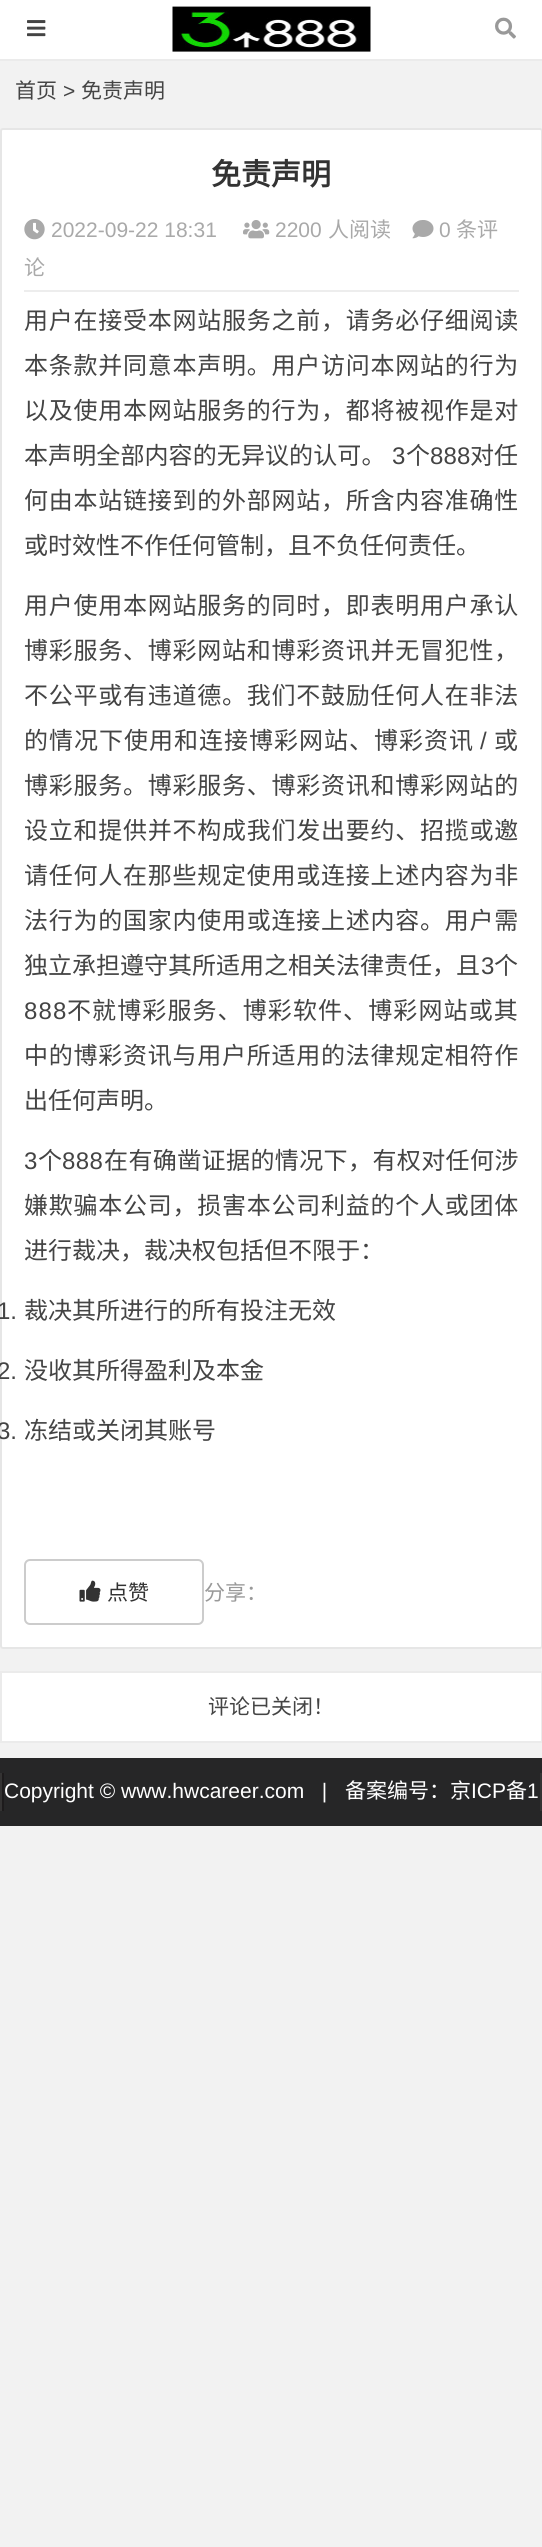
#include <cairo.h>
#include <math.h>
#include <stddef.h>


static void set_color(cairo_t *cr, unsigned color) {
    cairo_set_source_rgb(cr, (color >> 16) / 255.0, (color >> 8 & 255) / 255.0, (color & 255) / 255.0);
}

static void draw_text(cairo_t *cr, double x, double y, const char *s, const char *family, double size, int italic, int bold, unsigned color) {
    cairo_select_font_face(cr, family, italic ? CAIRO_FONT_SLANT_ITALIC : CAIRO_FONT_SLANT_NORMAL,
        bold ? CAIRO_FONT_WEIGHT_BOLD : CAIRO_FONT_WEIGHT_NORMAL);
    cairo_set_font_size(cr, size);
    set_color(cr, color);
    cairo_move_to(cr, x, y);
    cairo_show_text(cr, s);
}

static void draw_spaced(cairo_t *cr, double x, double y, const char *s, double letter, double word) {
    cairo_move_to(cr, x, y);
    while (*s) {
        char ch[5] = {0};
        int n = 0;
        do ch[n++] = *s++; while ((*s & 0xC0) == 0x80);
        cairo_show_text(cr, ch);
        cairo_rel_move_to(cr, letter + word * (*ch == ' '), 0);
    }
}

static void fill_rect(cairo_t *cr, double x, double y, double w, double h, unsigned color) {
    set_color(cr, color);
    cairo_rectangle(cr, x, y, w, h);
    cairo_fill(cr);
}

static void rounded_rect(cairo_t *cr, double x, double y, double w, double h, double r) {
    cairo_new_sub_path(cr);
    cairo_arc(cr, x + w - r, y + h - r, r, 0, M_PI / 2);
    cairo_arc(cr, x + r, y + h - r, r, M_PI / 2, M_PI);
    cairo_arc(cr, x + r, y + r, r, M_PI, 1.5 * M_PI);
    cairo_arc(cr, x + w - r, y + r, r, 1.5 * M_PI, 2 * M_PI);
    cairo_close_path(cr);
}

static void draw_image(cairo_t *cr, const char *path, double x, double y, double w, double h) {
    cairo_surface_t *image = cairo_image_surface_create_from_png(path);
    cairo_save(cr);
    cairo_set_source_surface(cr, image, x, y);
    cairo_rectangle(cr, x, y, w, h);
    cairo_fill(cr);
    cairo_restore(cr);
    cairo_surface_destroy(image);
}

int main(void) {
    cairo_surface_t *surface = cairo_image_surface_create(CAIRO_FORMAT_RGB24, 542, 2547);
    cairo_t *cr = cairo_create(surface);
    cairo_font_options_t *options = cairo_font_options_create();
    cairo_font_options_set_hint_metrics(options, CAIRO_HINT_METRICS_OFF);
    cairo_font_options_set_hint_style(options, CAIRO_HINT_STYLE_NONE);
    cairo_set_font_options(cr, options);
    cairo_set_miter_limit(cr, 4);
    set_color(cr, 0xF2F2F2);
    cairo_paint(cr);
    fill_rect(cr, 0, 0, 542, 59, 0xFFFFFF);
    fill_rect(cr, 0, 59, 542, 2, 0xEBEBEB);
    draw_image(cr, "assets/img1.png", 27, 20, 19, 17);
    draw_image(cr, "assets/img2.png", 172, 6, 199, 46);
    draw_image(cr, "assets/img3.png", 495, 17, 21, 22);
    draw_text(cr, 15, 98, "首页", "Noto Sans CJK SC", 21, 0, 0, 0x444444);
    draw_text(cr, 63, 98, ">", "Liberation Sans", 21, 0, 0, 0x444444);
    draw_text(cr, 81, 98, "免责声明", "Noto Sans CJK SC", 21, 0, 0, 0x444444);
    set_color(cr, 0xFFFFFF);
    rounded_rect(cr, 1, 129, 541, 1519, 2);
    cairo_fill_preserve(cr);
    set_color(cr, 0xE6E6E6);
    cairo_stroke(cr);
    draw_text(cr, 211, 185, "免责声明", "Noto Sans CJK SC", 30, 0, 1, 0x333333);
    fill_rect(cr, 24, 290, 495, 2, 0xEDEDED);
    draw_image(cr, "assets/img4.png", 412, 220, 22, 19);
    draw_text(cr, 439, 237, "0", "Liberation Sans", 21, 0, 0, 0xA9A9A9);
    draw_text(cr, 456, 237, "条评", "Noto Sans CJK SC", 21, 0, 0, 0xA9A9A9);
    draw_text(cr, 24, 275, "论", "Noto Sans CJK SC", 21, 0, 0, 0xA9A9A9);
    draw_image(cr, "assets/img5.png", 24, 219, 21, 21);
    draw_text(cr, 51, 237, "2022-09-22 18:31", "Liberation Sans", 21, 0, 0, 0xA9A9A9);
    draw_image(cr, "assets/img6.png", 243, 220, 27, 19);
    draw_text(cr, 275, 237, "2200", "Liberation Sans", 21, 0, 0, 0xA9A9A9);
    draw_text(cr, 328, 237, "人阅读", "Noto Sans CJK SC", 21, 0, 0, 0xA9A9A9);
    cairo_set_font_size(cr, 24);
    set_color(cr, 0x444444);
    draw_spaced(cr, 24, 329, "用户在接受本网站服务之前，请务必仔细阅读", 0.75, 0);
    draw_spaced(cr, 24, 374, "本条款并同意本声明。用户访问本网站的行为", 0.75, 0);
    draw_spaced(cr, 24, 419, "以及使用本网站服务的行为，都将被视作是对", 0.75, 0);
    draw_spaced(cr, 24, 464, "本声明全部内容的无异议的认可。", 0.1, 0);
    cairo_select_font_face(cr, "Liberation Sans", CAIRO_FONT_SLANT_NORMAL, CAIRO_FONT_WEIGHT_NORMAL);
    draw_spaced(cr, 392, 464, "3", 0.1, 0);
    cairo_select_font_face(cr, "Noto Sans CJK SC", CAIRO_FONT_SLANT_NORMAL, CAIRO_FONT_WEIGHT_NORMAL);
    draw_spaced(cr, 406, 464, "个", 0.1, 0);
    cairo_select_font_face(cr, "Liberation Sans", CAIRO_FONT_SLANT_NORMAL, CAIRO_FONT_WEIGHT_NORMAL);
    draw_spaced(cr, 430, 464, "888", 0.1, 0);
    cairo_select_font_face(cr, "Noto Sans CJK SC", CAIRO_FONT_SLANT_NORMAL, CAIRO_FONT_WEIGHT_NORMAL);
    draw_spaced(cr, 470, 464, "对任", 0.1, 0);
    draw_spaced(cr, 24, 509, "何由本站链接到的外部网站，所含内容准确性", 0.75, 0);
    draw_text(cr, 24, 554, "或时效性不作任何管制，且不负任何责任。", "Noto Sans CJK SC", 24, 0, 0, 0x444444);
    draw_spaced(cr, 24, 614, "用户使用本网站服务的同时，即表明用户承认", 0.75, 0);
    draw_spaced(cr, 24, 659, "博彩服务、博彩网站和博彩资讯并无冒犯性，", 0.75, 0);
    draw_spaced(cr, 24, 704, "不公平或有违道德。我们不鼓励任何人在非法", 0.75, 0);
    draw_spaced(cr, 24, 749, "的情况下使用和连接博彩网站、博彩资讯", 1, 0);
    draw_text(cr, 480, 749, "/", "Liberation Sans", 24, 0, 0, 0x444444);
    draw_text(cr, 494, 749, "或", "Noto Sans CJK SC", 24, 0, 0, 0x444444);
    draw_spaced(cr, 24, 794, "博彩服务。博彩服务、博彩资讯和博彩网站的", 0.75, 0);
    draw_spaced(cr, 24, 839, "设立和提供并不构成我们发出要约、招揽或邀", 0.75, 0);
    draw_spaced(cr, 24, 884, "请任何人在那些规定使用或连接上述内容为非", 0.75, 0);
    draw_spaced(cr, 24, 929, "法行为的国家内使用或连接上述内容。用户需", 0.75, 0);
    draw_text(cr, 24, 974, "独立承担遵守其所适用之相关法律责任，且", "Noto Sans CJK SC", 24, 0, 0, 0x444444);
    draw_text(cr, 481, 974, "3", "Liberation Sans", 24, 0, 0, 0x444444);
    draw_text(cr, 494, 974, "个", "Noto Sans CJK SC", 24, 0, 0, 0x444444);
    cairo_select_font_face(cr, "Liberation Sans", CAIRO_FONT_SLANT_NORMAL, CAIRO_FONT_WEIGHT_NORMAL);
    draw_spaced(cr, 24, 1019, "888", 1.1, 0);
    cairo_select_font_face(cr, "Noto Sans CJK SC", CAIRO_FONT_SLANT_NORMAL, CAIRO_FONT_WEIGHT_NORMAL);
    draw_spaced(cr, 67, 1019, "不就博彩服务、博彩软件、博彩网站或其", 1.1, 0);
    draw_spaced(cr, 24, 1064, "中的博彩资讯与用户所适用的法律规定相符作", 0.75, 0);
    draw_text(cr, 24, 1109, "出任何声明。", "Noto Sans CJK SC", 24, 0, 0, 0x444444);
    cairo_select_font_face(cr, "Liberation Sans", CAIRO_FONT_SLANT_NORMAL, CAIRO_FONT_WEIGHT_NORMAL);
    draw_spaced(cr, 24, 1169, "3", 0.4, 0);
    cairo_select_font_face(cr, "Noto Sans CJK SC", CAIRO_FONT_SLANT_NORMAL, CAIRO_FONT_WEIGHT_NORMAL);
    draw_spaced(cr, 38, 1169, "个", 0.4, 0);
    cairo_select_font_face(cr, "Liberation Sans", CAIRO_FONT_SLANT_NORMAL, CAIRO_FONT_WEIGHT_NORMAL);
    draw_spaced(cr, 62, 1169, "888", 0.4, 0);
    cairo_select_font_face(cr, "Noto Sans CJK SC", CAIRO_FONT_SLANT_NORMAL, CAIRO_FONT_WEIGHT_NORMAL);
    draw_spaced(cr, 104, 1169, "在有确凿证据的情况下，有权对任何涉", 0.4, 0);
    draw_spaced(cr, 24, 1214, "嫌欺骗本公司，损害本公司利益的个人或团体", 0.75, 0);
    draw_text(cr, 24, 1259, "进行裁决，裁决权包括但不限于：", "Noto Sans CJK SC", 24, 0, 0, 0x444444);
    draw_text(cr, -3, 1319, "1.", "Liberation Sans", 24, 0, 0, 0x444444);
    draw_text(cr, 24, 1319, "裁决其所进行的所有投注无效", "Noto Sans CJK SC", 24, 0, 0, 0x444444);
    draw_text(cr, -3, 1379, "2.", "Liberation Sans", 24, 0, 0, 0x444444);
    draw_text(cr, 24, 1379, "没收其所得盈利及本金", "Noto Sans CJK SC", 24, 0, 0, 0x444444);
    draw_text(cr, -3, 1439, "3.", "Liberation Sans", 24, 0, 0, 0x444444);
    draw_text(cr, 24, 1439, "冻结或关闭其账号", "Noto Sans CJK SC", 24, 0, 0, 0x444444);
    rounded_rect(cr, 25, 1560, 178, 64, 5);
    set_color(cr, 0xCCCCCC);
    cairo_stroke(cr);
    draw_image(cr, "assets/img7.png", 79, 1580, 22, 22);
    draw_text(cr, 107, 1600, "点赞", "Noto Sans CJK SC", 21, 0, 0, 0x333333);
    draw_text(cr, 204, 1600, "分享：", "Noto Sans CJK SC", 21, 0, 0, 0x999999);
    set_color(cr, 0xFFFFFF);
    cairo_rectangle(cr, 1, 1672, 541, 70);
    cairo_fill_preserve(cr);
    set_color(cr, 0xEBEBEB);
    cairo_stroke(cr);
    draw_text(cr, 208, 1714, "评论已关闭！", "Noto Sans CJK SC", 21, 0, 0, 0x444444);
    fill_rect(cr, 0, 1758, 542, 68, 0x262627);
    fill_rect(cr, 0, 1773, 2, 38, 0x343333);
    fill_rect(cr, 540, 1773, 2, 38, 0x343333);
    fill_rect(cr, 2, 1773, 2, 38, 0x1D1B1C);
    draw_text(cr, 4, 1798, "Copyright © www.hwcareer.com   |", "Liberation Sans", 21, 0, 0, 0xFFFFFF);
    draw_text(cr, 345, 1798, "备案编号：京", "Noto Sans CJK SC", 21, 0, 0, 0xFFFFFF);
    draw_text(cr, 471, 1798, "ICP", "Liberation Sans", 21, 0, 0, 0xFFFFFF);
    draw_text(cr, 506, 1798, "备", "Noto Sans CJK SC", 21, 0, 0, 0xFFFFFF);
    draw_text(cr, 527, 1798, "1", "Liberation Sans", 21, 0, 0, 0xFFFFFF);
    cairo_surface_write_to_png(surface, "output.png");
    cairo_font_options_destroy(options);
    cairo_destroy(cr);
    cairo_surface_destroy(surface);
    return 0;
}
